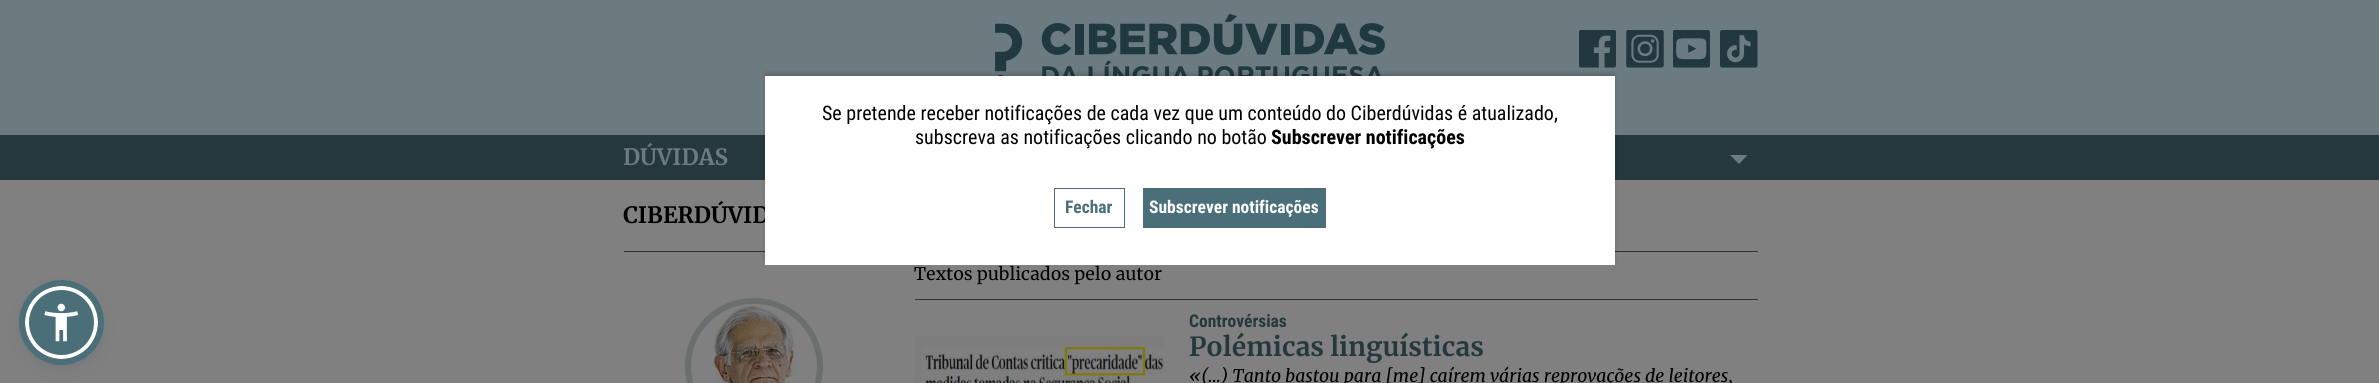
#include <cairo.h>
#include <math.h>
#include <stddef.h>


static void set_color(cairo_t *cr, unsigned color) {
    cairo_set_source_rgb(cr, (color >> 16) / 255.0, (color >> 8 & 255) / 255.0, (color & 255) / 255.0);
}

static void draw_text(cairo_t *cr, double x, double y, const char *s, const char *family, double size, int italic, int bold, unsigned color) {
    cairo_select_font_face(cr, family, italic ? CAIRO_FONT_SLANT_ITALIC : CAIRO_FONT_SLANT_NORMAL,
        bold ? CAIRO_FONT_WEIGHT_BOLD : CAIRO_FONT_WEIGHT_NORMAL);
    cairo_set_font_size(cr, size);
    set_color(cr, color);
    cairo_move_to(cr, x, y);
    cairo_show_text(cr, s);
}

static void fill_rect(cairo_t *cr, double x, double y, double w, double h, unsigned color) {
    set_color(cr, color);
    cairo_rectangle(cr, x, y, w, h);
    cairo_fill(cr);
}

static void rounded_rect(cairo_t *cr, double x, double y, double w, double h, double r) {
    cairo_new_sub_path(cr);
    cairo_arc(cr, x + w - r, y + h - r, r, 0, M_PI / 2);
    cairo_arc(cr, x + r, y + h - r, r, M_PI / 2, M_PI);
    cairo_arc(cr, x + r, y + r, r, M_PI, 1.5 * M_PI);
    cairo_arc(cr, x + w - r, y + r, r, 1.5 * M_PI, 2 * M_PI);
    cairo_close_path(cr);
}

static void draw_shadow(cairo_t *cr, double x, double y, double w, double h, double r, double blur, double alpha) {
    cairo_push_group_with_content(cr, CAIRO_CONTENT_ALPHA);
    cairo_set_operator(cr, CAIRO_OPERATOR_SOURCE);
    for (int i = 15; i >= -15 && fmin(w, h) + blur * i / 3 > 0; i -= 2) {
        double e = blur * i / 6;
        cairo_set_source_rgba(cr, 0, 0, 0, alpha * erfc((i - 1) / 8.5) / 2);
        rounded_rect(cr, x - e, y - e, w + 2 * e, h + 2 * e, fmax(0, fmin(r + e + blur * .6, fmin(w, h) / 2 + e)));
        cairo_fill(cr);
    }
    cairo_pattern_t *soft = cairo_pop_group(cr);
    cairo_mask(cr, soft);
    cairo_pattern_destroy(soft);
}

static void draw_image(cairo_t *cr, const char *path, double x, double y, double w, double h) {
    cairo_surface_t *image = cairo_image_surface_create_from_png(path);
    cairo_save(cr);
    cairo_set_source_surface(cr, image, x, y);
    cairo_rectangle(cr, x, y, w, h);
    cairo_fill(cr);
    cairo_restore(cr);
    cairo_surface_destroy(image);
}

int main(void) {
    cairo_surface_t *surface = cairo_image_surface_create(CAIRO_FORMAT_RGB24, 2379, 383);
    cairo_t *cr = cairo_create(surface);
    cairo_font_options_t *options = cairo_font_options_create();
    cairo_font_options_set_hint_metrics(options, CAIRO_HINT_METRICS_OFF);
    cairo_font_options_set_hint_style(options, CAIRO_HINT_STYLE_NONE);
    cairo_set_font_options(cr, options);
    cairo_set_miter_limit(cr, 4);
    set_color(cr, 0x808080);
    cairo_paint(cr);
    set_color(cr, 0x252C61);
    draw_shadow(cr, 25, 293, 73, 72, 36, 9.5, 0.15);
    set_color(cr, 0x4A6F79);
    cairo_arc(cr, 61.5, 322.5, 34.5, 0, 2 * M_PI);
    cairo_fill_preserve(cr);
    set_color(cr, 0xFFFFFF);
    cairo_set_line_width(cr, 4);
    cairo_stroke(cr);
    cairo_arc(cr, 61.5, 322.5, 39.5, 0, 2 * M_PI);
    set_color(cr, 0x4A6F79);
    cairo_set_line_width(cr, 6);
    cairo_stroke(cr);
    draw_image(cr, "assets/img1.png", 44, 303, 35, 39);
    fill_rect(cr, 0, 0, 2379, 135, 0x6B7B80);
    draw_image(cr, "assets/img2.png", 995, 14, 390, 62);
    draw_image(cr, "assets/img3.png", 1579, 30, 37, 38);
    draw_image(cr, "assets/img4.png", 1626, 30, 38, 38);
    draw_image(cr, "assets/img5.png", 1673, 30, 37, 38);
    draw_image(cr, "assets/img6.png", 1720, 30, 38, 38);
    fill_rect(cr, 0, 135, 2379, 45, 0x25383D);
    fill_rect(cr, 624, 251, 1134, 1, 0x25383D);
    set_color(cr, 0x000000);
    draw_shadow(cr, 765, 73, 850, 188, 0, 2, 0.15);
    draw_text(cr, 623, 223, "CIBERDÚVID", "Merriweather", 22.5, 0, 1, 0x000000);
    fill_rect(cr, 765, 76, 850, 189, 0xFFFFFF);
    draw_text(cr, 822, 120, "Se pretende receber notificações de cada vez que um conteúdo do Ciberdúvidas é atualizado,", "Roboto Condensed", 20, 0, 0, 0x000000);
    draw_text(cr, 915, 144, "subscreva as notificações clicando no botão", "Roboto Condensed", 20, 0, 0, 0x000000);
    draw_text(cr, 1271, 144, "Subscrever notificações", "Roboto Condensed", 20, 0, 1, 0x000000);
    cairo_rectangle(cr, 1054.5, 188.5, 70, 39);
    set_color(cr, 0x4A6F79);
    cairo_set_line_width(cr, 1);
    cairo_stroke(cr);
    draw_text(cr, 1065, 213, "Fechar", "Roboto Condensed", 17.5, 0, 1, 0x4A6F79);
    fill_rect(cr, 1143, 188, 183, 40, 0x4A6F79);
    draw_text(cr, 1149, 213, "Subscrever notificações", "Roboto Condensed", 17.5, 0, 1, 0xFFFFFF);
    draw_text(cr, 623, 165, "DÚVIDAS", "Merriweather", 22.5, 0, 1, 0x6B7B80);
    cairo_new_path(cr);
    cairo_move_to(cr, 1730, 155);
    cairo_line_to(cr, 1747.5, 155);
    cairo_line_to(cr, 1739, 164);
    cairo_close_path(cr);
    cairo_fill(cr);
    draw_image(cr, "assets/img7.png", 713, 305, 83, 78);
    rounded_rect(cr, 688, 301, 132, 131, 65.5);
    set_color(cr, 0x696E6F);
    cairo_set_line_width(cr, 6);
    cairo_stroke(cr);
    fill_rect(cr, 915, 299, 843, 1, 0x25383D);
    draw_text(cr, 914, 280, "Textos publicados pelo autor", "Merriweather", 17.5, 0, 0, 0x000000);
    draw_text(cr, 1189, 327, "Controvérsias", "Roboto Condensed", 17.5, 0, 1, 0x25383D);
    draw_image(cr, "assets/img8.png", 915, 336, 249, 47);
    draw_text(cr, 1189, 356, "Polémicas linguísticas", "Merriweather", 26.25, 0, 1, 0x25383D);
    draw_text(cr, 1189, 382, "«(...) Tanto bastou para [me] caírem várias reprovações de leitores,", "Merriweather", 17.5, 1, 0, 0x000000);
    cairo_surface_write_to_png(surface, "output.png");
    cairo_font_options_destroy(options);
    cairo_destroy(cr);
    cairo_surface_destroy(surface);
    return 0;
}
